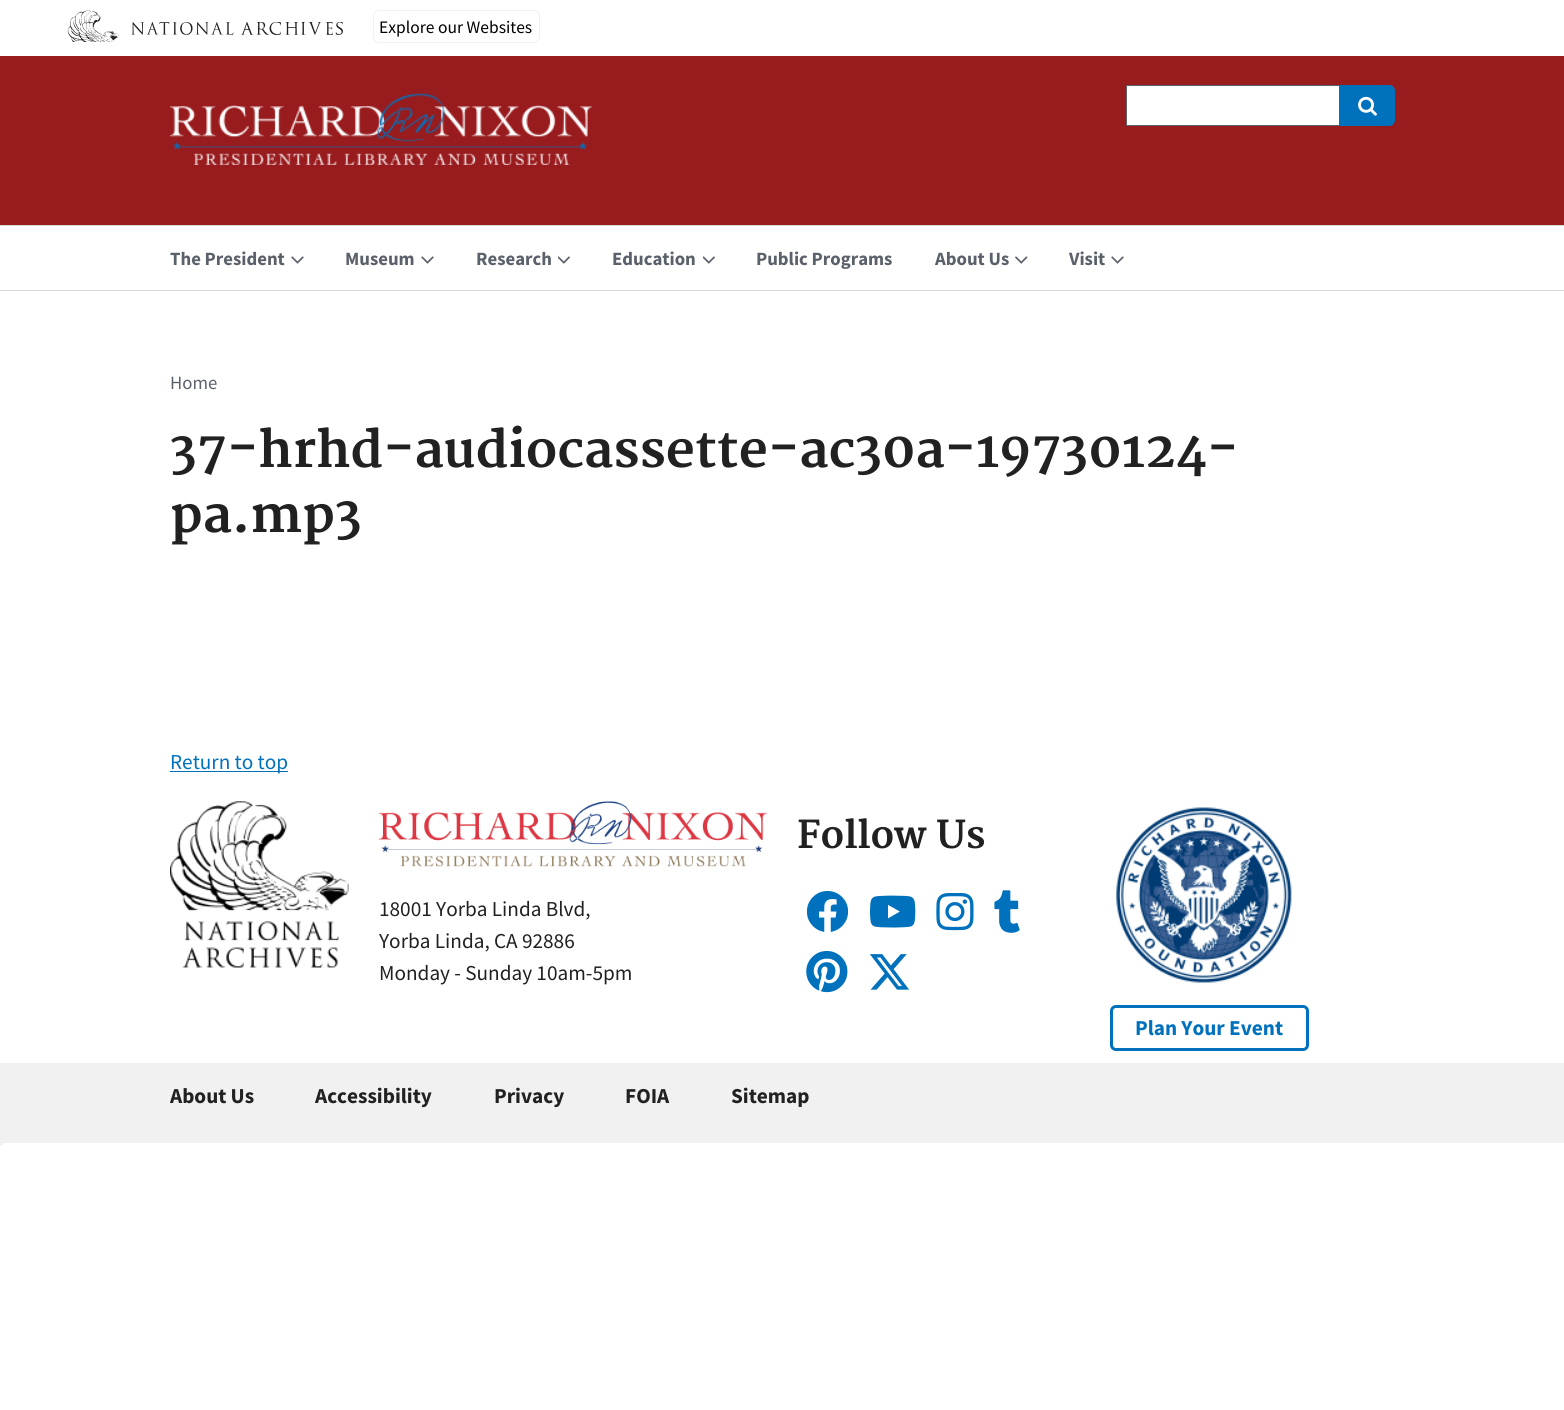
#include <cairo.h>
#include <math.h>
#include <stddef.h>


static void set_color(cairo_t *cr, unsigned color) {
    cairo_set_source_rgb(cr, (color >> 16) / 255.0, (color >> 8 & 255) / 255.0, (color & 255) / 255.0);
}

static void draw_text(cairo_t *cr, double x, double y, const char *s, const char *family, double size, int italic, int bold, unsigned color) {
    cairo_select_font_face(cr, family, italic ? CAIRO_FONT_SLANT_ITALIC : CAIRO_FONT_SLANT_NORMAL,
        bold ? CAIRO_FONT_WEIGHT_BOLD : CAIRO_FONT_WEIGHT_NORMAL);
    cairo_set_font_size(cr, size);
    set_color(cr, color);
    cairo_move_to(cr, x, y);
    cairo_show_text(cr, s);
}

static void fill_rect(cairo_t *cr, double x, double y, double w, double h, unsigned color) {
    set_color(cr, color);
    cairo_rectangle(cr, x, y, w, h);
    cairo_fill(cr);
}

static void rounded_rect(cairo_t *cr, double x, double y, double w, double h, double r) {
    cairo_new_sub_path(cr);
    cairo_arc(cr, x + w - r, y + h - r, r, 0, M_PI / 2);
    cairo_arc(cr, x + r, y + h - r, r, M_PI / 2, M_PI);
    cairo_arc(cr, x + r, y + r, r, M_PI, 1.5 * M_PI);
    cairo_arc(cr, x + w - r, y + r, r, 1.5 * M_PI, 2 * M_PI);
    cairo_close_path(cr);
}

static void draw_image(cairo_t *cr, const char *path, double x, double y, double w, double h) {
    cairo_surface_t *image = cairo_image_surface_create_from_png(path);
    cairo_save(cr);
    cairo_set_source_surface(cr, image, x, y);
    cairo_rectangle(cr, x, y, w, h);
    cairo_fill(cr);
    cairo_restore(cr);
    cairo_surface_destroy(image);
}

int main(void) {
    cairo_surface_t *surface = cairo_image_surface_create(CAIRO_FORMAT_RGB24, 1564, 1410);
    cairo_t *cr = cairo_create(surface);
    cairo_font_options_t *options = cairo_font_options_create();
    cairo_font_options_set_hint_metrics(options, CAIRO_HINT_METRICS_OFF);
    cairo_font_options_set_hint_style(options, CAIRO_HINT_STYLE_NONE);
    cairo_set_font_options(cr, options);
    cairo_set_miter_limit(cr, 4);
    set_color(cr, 0xFFFFFF);
    cairo_paint(cr);
    draw_image(cr, "assets/img1.png", 67, 10, 276, 32);
    rounded_rect(cr, 373.5, 10.5, 166, 32, 5.5);
    set_color(cr, 0xF1F1F1);
    cairo_set_line_width(cr, 1);
    cairo_stroke(cr);
    draw_text(cr, 379, 33, "Explore our Websites", "Source Sans Pro", 17.5, 0, 0, 0x000000);
    fill_rect(cr, 0, 56, 1564, 169, 0x981B1E);
    fill_rect(cr, 0, 290, 1564, 1, 0xD6D7D9);
    draw_image(cr, "assets/img2.png", 170, 93, 423, 72);
    fill_rect(cr, 1127, 86, 212, 39, 0xFFFFFF);
    fill_rect(cr, 1126, 85, 213, 1, 0x5B616B);
    fill_rect(cr, 1126, 125, 213, 1, 0x5B616B);
    fill_rect(cr, 1126, 85, 1, 41, 0x5B616B);
    set_color(cr, 0x0071BC);
    cairo_new_path(cr);
    cairo_move_to(cr, 1339, 85);
    cairo_line_to(cr, 1389, 85);
    cairo_curve_to(cr, 1392.5, 85, 1395, 87.5, 1395, 91);
    cairo_line_to(cr, 1395, 120);
    cairo_curve_to(cr, 1395, 123.5, 1392.5, 126, 1389, 126);
    cairo_line_to(cr, 1339, 126);
    cairo_close_path(cr);
    cairo_fill(cr);
    draw_image(cr, "assets/img3.png", 1358, 96, 19, 20);
    fill_rect(cr, 0, 225, 1564, 1, 0xD6D7D9);
    draw_image(cr, "assets/img4.png", 291, 256, 13, 8);
    draw_text(cr, 170, 265, "The President", "Source Sans Pro", 18.75, 0, 1, 0x5B616B);
    draw_image(cr, "assets/img4.png", 421, 256, 13, 8);
    draw_text(cr, 345, 265, "Museum", "Source Sans Pro", 18.75, 0, 1, 0x5B616B);
    draw_image(cr, "assets/img5.png", 558, 256, 12, 8);
    draw_text(cr, 476, 265, "Research", "Source Sans Pro", 18.75, 0, 1, 0x5B616B);
    draw_image(cr, "assets/img5.png", 703, 256, 12, 8);
    draw_text(cr, 612, 265, "Education", "Source Sans Pro", 18.75, 0, 1, 0x5B616B);
    draw_text(cr, 756, 265, "Public Programs", "Source Sans Pro", 18.75, 0, 1, 0x5B616B);
    draw_image(cr, "assets/img6.png", 1015, 256, 13, 8);
    draw_text(cr, 935, 265, "About Us", "Source Sans Pro", 18.75, 0, 1, 0x5B616B);
    draw_image(cr, "assets/img4.png", 1111, 256, 13, 8);
    draw_text(cr, 1069, 265, "Visit", "Source Sans Pro", 18.75, 0, 1, 0x5B616B);
    draw_text(cr, 170, 389, "Home", "Source Sans Pro", 18.75, 0, 0, 0x5B616B);
    draw_text(cr, 170, 467, "37-hrhd-audiocassette-ac30a-19730124-", "Merriweather", 50, 0, 1, 0x212121);
    draw_text(cr, 170, 532, "pa.mp3", "Merriweather", 50, 0, 1, 0x212121);
    fill_rect(cr, 170, 771, 118, 1, 0x0071BC);
    draw_text(cr, 170, 769, "Return to top", "Source Sans Pro", 21.25, 0, 0, 0x0071BC);
    draw_image(cr, "assets/img7.png", 170, 801, 179, 167);
    draw_text(cr, 797, 848, "Follow Us", "Merriweather", 37.5, 0, 1, 0x212121);
    draw_image(cr, "assets/img8.png", 806, 891, 43, 41);
    draw_image(cr, "assets/img9.png", 870, 895, 46, 33);
    draw_image(cr, "assets/img10.png", 936, 893, 38, 38);
    draw_image(cr, "assets/img11.png", 994, 890, 26, 43);
    draw_image(cr, "assets/img12.png", 806, 951, 42, 42);
    draw_image(cr, "assets/img13.png", 869, 954, 40, 36);
    draw_image(cr, "assets/img14.png", 378, 801, 390, 66);
    draw_text(cr, 379, 916, "18001 Yorba Linda Blvd,", "Source Sans Pro", 21.25, 0, 0, 0x212121);
    draw_text(cr, 379, 948, "Yorba Linda, CA 92886", "Source Sans Pro", 21.25, 0, 0, 0x212121);
    draw_text(cr, 379, 980, "Monday - Sunday 10am-5pm", "Source Sans Pro", 21.25, 0, 0, 0x212121);
    draw_image(cr, "assets/img15.png", 1116, 807, 176, 176);
    rounded_rect(cr, 1111.5, 1006.5, 196, 43, 4.5);
    set_color(cr, 0x0071BC);
    cairo_set_line_width(cr, 3);
    cairo_stroke(cr);
    draw_text(cr, 1135, 1035, "Plan Your Event", "Source Sans Pro", 21.25, 0, 1, 0x0071BC);
    fill_rect(cr, 0, 1063, 1564, 80, 0xF1F1F1);
    draw_text(cr, 170, 1103, "About Us", "Source Sans Pro", 21.25, 0, 1, 0x212121);
    draw_text(cr, 315, 1103, "Accessibility", "Source Sans Pro", 21.25, 0, 1, 0x212121);
    draw_text(cr, 494, 1103, "Privacy", "Source Sans Pro", 21.25, 0, 1, 0x212121);
    draw_text(cr, 625, 1103, "FOIA", "Source Sans Pro", 21.25, 0, 1, 0x212121);
    draw_text(cr, 731, 1103, "Sitemap", "Source Sans Pro", 21.25, 0, 1, 0x212121);
    set_color(cr, 0xF1F1F1);
    cairo_new_path(cr);
    cairo_arc(cr, 1.5, 1144.5, 1.5, 0, 2 * M_PI);
    cairo_fill(cr);
    cairo_surface_write_to_png(surface, "output.png");
    cairo_font_options_destroy(options);
    cairo_destroy(cr);
    cairo_surface_destroy(surface);
    return 0;
}
